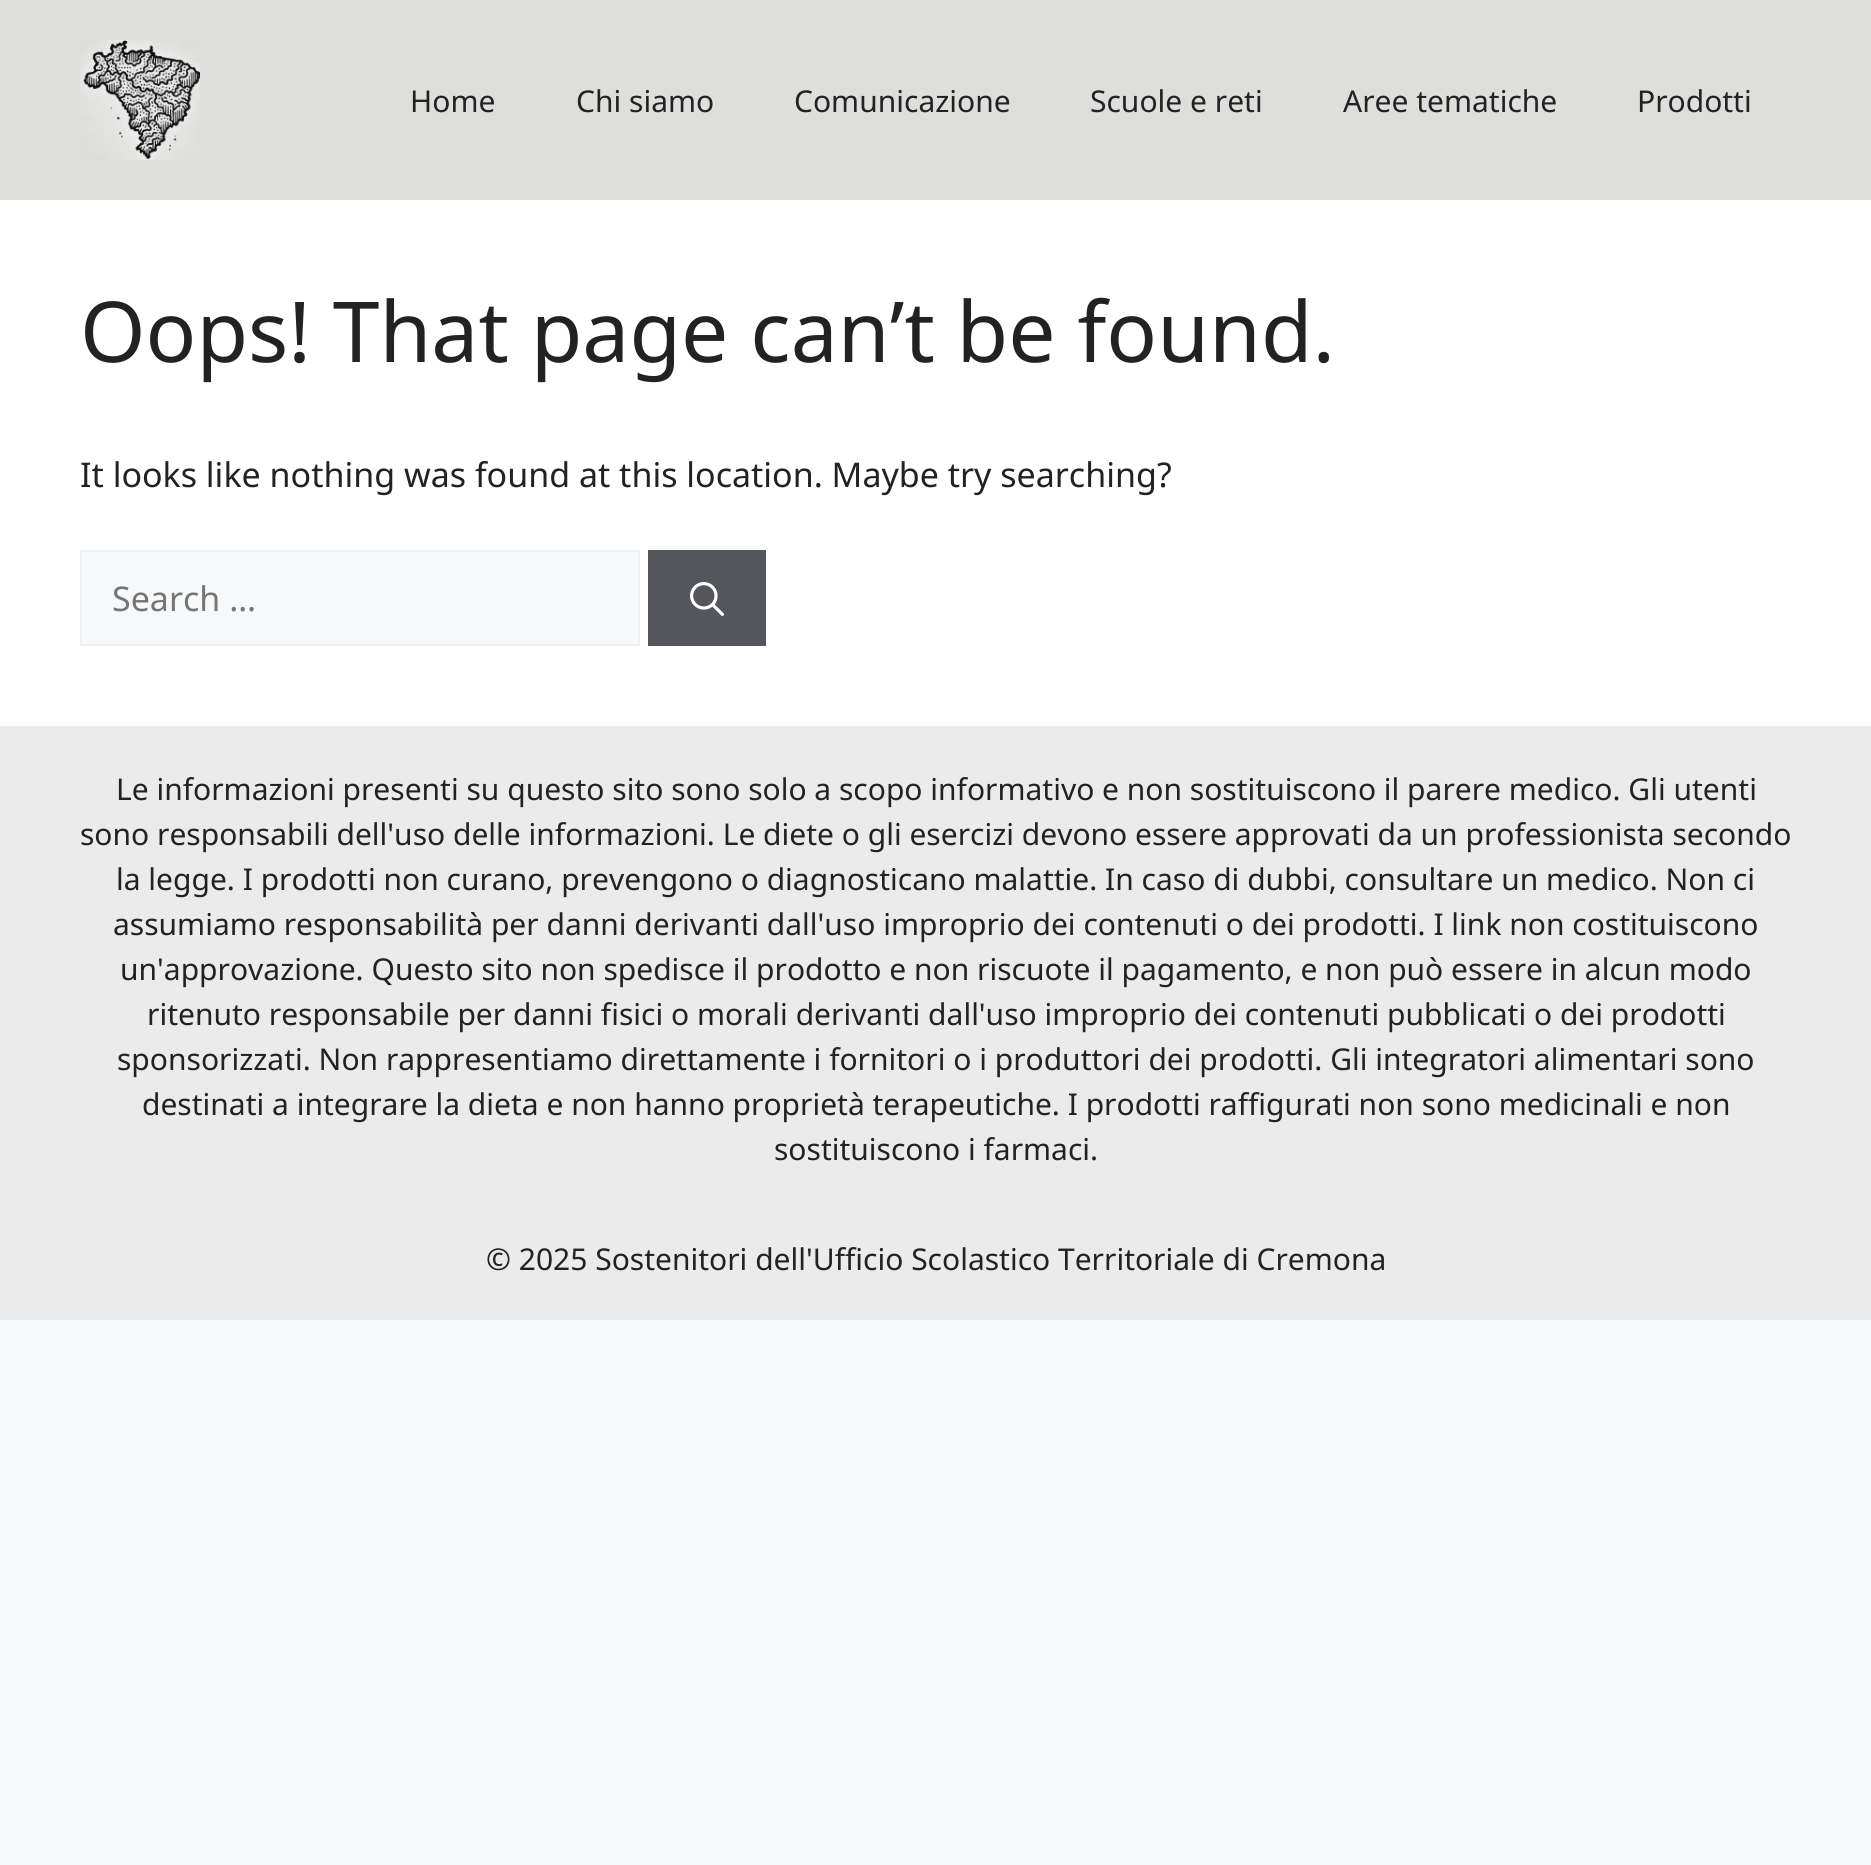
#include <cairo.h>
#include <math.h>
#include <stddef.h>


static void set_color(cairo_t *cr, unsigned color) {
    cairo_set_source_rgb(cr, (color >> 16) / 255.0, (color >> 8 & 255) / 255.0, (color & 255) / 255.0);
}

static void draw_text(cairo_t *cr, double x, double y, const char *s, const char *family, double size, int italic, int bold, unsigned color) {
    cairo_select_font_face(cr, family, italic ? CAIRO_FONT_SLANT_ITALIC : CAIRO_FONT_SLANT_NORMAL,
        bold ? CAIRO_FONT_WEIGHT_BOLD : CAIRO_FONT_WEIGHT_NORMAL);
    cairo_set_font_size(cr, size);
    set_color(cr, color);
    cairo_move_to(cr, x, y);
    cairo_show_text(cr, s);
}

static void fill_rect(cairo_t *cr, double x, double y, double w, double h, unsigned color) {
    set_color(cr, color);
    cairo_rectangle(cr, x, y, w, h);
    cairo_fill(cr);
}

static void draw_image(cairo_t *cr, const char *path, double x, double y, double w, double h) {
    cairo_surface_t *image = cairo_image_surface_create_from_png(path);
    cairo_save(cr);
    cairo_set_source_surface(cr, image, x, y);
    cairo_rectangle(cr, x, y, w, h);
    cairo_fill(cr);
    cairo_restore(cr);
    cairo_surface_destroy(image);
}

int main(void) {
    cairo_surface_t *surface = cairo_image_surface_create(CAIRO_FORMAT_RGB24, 1871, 1865);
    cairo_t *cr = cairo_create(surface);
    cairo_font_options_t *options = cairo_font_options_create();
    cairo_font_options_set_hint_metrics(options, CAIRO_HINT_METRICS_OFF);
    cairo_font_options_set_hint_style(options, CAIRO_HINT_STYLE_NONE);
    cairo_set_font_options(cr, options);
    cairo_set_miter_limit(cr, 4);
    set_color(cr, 0xF7F8F9);
    cairo_paint(cr);
    fill_rect(cr, 0, 0, 1871, 200, 0xDEDFDC);
    draw_image(cr, "assets/img1.png", 80, 40, 120, 120);
    draw_text(cr, 410, 112, "Home", "Noto Sans", 30, 0, 0, 0x222222);
    draw_text(cr, 576, 112, "Chi siamo", "Noto Sans", 30, 0, 0, 0x222222);
    draw_text(cr, 794, 112, "Comunicazione", "Noto Sans", 30, 0, 0, 0x222222);
    draw_text(cr, 1090, 112, "Scuole e reti", "Noto Sans", 30, 0, 0, 0x222222);
    draw_text(cr, 1343, 112, "Aree tematiche", "Noto Sans", 30, 0, 0, 0x222222);
    draw_text(cr, 1637, 112, "Prodotti", "Noto Sans", 30, 0, 0, 0x222222);
    fill_rect(cr, 0, 200, 1871, 526, 0xFFFFFF);
    draw_text(cr, 80, 362, "Oops! That page can’t be found.", "Noto Sans", 84, 0, 0, 0x222222);
    draw_text(cr, 80, 487, "It looks like nothing was found at this location. Maybe try searching?", "Noto Sans", 34, 0, 0, 0x222222);
    set_color(cr, 0xF7F8F9);
    cairo_rectangle(cr, 81, 551, 558, 94);
    cairo_fill_preserve(cr);
    set_color(cr, 0xF0F0F0);
    cairo_stroke(cr);
    draw_text(cr, 112, 611, "Search …", "Noto Sans", 34, 0, 0, 0x757575);
    fill_rect(cr, 648, 550, 118, 96, 0x55555E);
    draw_image(cr, "assets/img2.png", 690, 582, 34, 34);
    fill_rect(cr, 0, 726, 1871, 594, 0xEBEBEB);
    draw_text(cr, 116, 800, "Le informazioni presenti su questo sito sono solo a scopo informativo e non sostituiscono il parere medico. Gli utenti", "Noto Sans", 30, 0, 0, 0x222222);
    draw_text(cr, 80, 845, "sono responsabili dell'uso delle informazioni. Le diete o gli esercizi devono essere approvati da un professionista secondo", "Noto Sans", 30, 0, 0, 0x222222);
    draw_text(cr, 116, 890, "la legge. I prodotti non curano, prevengono o diagnosticano malattie. In caso di dubbi, consultare un medico. Non ci", "Noto Sans", 30, 0, 0, 0x222222);
    draw_text(cr, 113, 935, "assumiamo responsabilità per danni derivanti dall'uso improprio dei contenuti o dei prodotti. I link non costituiscono", "Noto Sans", 30, 0, 0, 0x222222);
    draw_text(cr, 120, 980, "un'approvazione. Questo sito non spedisce il prodotto e non riscuote il pagamento, e non può essere in alcun modo", "Noto Sans", 30, 0, 0, 0x222222);
    draw_text(cr, 147, 1025, "ritenuto responsabile per danni fisici o morali derivanti dall'uso improprio dei contenuti pubblicati o dei prodotti", "Noto Sans", 30, 0, 0, 0x222222);
    draw_text(cr, 117, 1070, "sponsorizzati. Non rappresentiamo direttamente i fornitori o i produttori dei prodotti. Gli integratori alimentari sono", "Noto Sans", 30, 0, 0, 0x222222);
    draw_text(cr, 142, 1115, "destinati a integrare la dieta e non hanno proprietà terapeutiche. I prodotti raffigurati non sono medicinali e non", "Noto Sans", 30, 0, 0, 0x222222);
    draw_text(cr, 774, 1160, "sostituiscono i farmaci.", "Noto Sans", 30, 0, 0, 0x222222);
    draw_text(cr, 486, 1270, "© 2025 Sostenitori dell'Ufficio Scolastico Territoriale di Cremona", "Noto Sans", 30, 0, 0, 0x222222);
    cairo_surface_write_to_png(surface, "output.png");
    cairo_font_options_destroy(options);
    cairo_destroy(cr);
    cairo_surface_destroy(surface);
    return 0;
}
